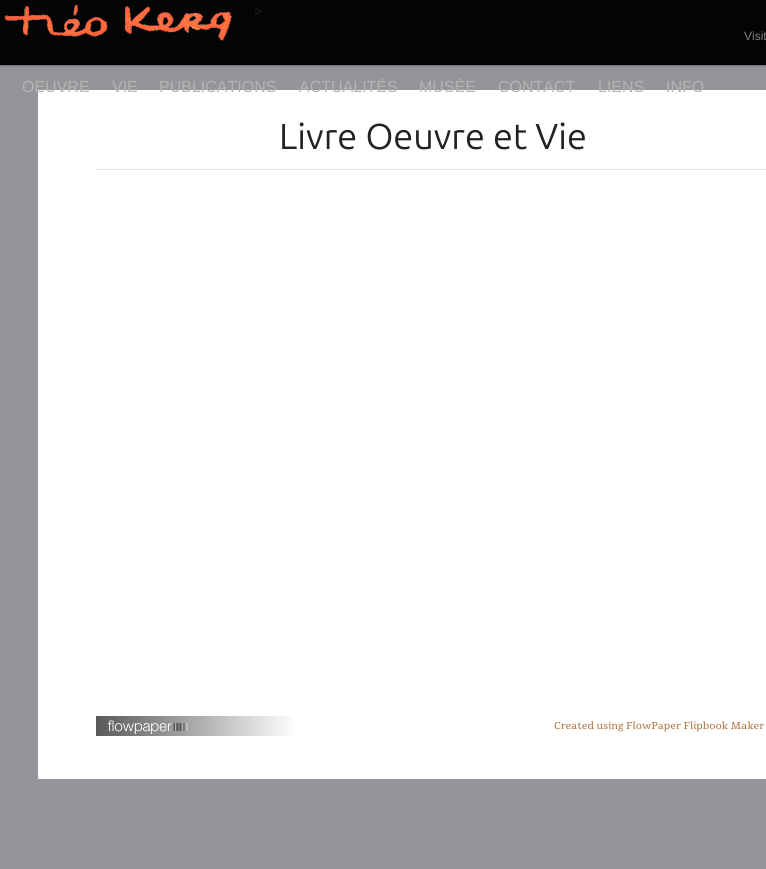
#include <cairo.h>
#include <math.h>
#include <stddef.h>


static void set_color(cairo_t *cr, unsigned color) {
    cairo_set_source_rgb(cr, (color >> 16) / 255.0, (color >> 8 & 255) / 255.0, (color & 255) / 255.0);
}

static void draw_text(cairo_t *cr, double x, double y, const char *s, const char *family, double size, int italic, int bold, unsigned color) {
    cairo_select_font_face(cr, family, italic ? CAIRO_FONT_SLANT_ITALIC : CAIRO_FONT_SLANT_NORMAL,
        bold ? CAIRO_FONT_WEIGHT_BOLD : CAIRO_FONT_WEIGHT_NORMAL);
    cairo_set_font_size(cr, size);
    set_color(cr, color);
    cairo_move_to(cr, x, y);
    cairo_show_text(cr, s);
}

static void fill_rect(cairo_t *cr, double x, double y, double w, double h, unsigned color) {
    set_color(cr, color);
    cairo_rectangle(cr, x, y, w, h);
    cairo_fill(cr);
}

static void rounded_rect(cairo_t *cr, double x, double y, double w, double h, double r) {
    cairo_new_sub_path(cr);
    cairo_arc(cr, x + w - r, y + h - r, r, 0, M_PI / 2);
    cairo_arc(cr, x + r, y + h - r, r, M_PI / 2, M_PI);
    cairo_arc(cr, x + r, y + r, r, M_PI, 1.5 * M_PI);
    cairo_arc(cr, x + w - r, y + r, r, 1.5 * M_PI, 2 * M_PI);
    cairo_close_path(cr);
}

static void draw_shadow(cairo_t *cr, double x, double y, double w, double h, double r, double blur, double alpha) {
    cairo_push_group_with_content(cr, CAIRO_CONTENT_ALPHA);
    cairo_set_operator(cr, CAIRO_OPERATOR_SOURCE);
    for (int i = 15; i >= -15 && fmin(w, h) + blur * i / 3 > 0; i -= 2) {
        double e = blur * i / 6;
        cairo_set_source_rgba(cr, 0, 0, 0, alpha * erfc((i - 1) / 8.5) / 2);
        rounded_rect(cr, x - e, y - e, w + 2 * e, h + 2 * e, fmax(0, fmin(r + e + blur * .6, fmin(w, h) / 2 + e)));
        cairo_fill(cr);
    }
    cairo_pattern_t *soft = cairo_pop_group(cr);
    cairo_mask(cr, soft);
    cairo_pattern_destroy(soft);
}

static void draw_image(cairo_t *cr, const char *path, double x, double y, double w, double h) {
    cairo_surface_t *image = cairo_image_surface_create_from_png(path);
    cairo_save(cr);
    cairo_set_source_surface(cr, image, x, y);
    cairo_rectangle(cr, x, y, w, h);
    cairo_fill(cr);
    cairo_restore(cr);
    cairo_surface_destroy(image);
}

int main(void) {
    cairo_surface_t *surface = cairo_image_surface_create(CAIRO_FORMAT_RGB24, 766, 869);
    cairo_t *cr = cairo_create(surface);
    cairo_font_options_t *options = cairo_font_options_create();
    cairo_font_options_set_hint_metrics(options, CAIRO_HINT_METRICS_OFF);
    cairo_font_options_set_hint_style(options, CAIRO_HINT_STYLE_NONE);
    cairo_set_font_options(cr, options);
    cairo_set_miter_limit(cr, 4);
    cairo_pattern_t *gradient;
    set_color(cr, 0x939598);
    cairo_paint(cr);
    set_color(cr, 0x000000);
    draw_shadow(cr, 0, 0, 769, 65, 0, 1, 0.5);
    draw_image(cr, "assets/img1.png", 0, 0, 766, 65);
    draw_image(cr, "assets/img2.png", 4, 4, 228, 37);
    draw_text(cr, 254, 15, ">", "Tienne", 13, 0, 0, 0x222222);
    draw_text(cr, 744, 40, "Visit", "Liberation Sans", 12, 0, 0, 0x808080);
    fill_rect(cr, 38, 90, 728, 689, 0xFFFFFF);
    draw_text(cr, 22, 92, "OEUVRE", "Liberation Sans", 16, 0, 0, 0xB4B4B4);
    draw_text(cr, 112, 92, "VIE", "Liberation Sans", 16, 0, 0, 0xB4B4B4);
    draw_text(cr, 159, 92, "PUBLICATIONS", "Liberation Sans", 16, 0, 0, 0xB4B4B4);
    draw_text(cr, 299, 92, "ACTUALITÉS", "Liberation Sans", 16, 0, 0, 0xB4B4B4);
    draw_text(cr, 419, 92, "MUSÉE", "Liberation Sans", 16, 0, 0, 0xB4B4B4);
    draw_text(cr, 498, 92, "CONTACT", "Liberation Sans", 16, 0, 0, 0xB4B4B4);
    draw_text(cr, 598, 92, "LIENS", "Liberation Sans", 16, 0, 0, 0xB4B4B4);
    draw_text(cr, 666, 92, "INFO", "Liberation Sans", 16, 0, 0, 0xB4B4B4);
    draw_text(cr, 279, 149, "Livre Oeuvre et Vie", "Ubuntu", 36, 0, 0, 0x222222);
    fill_rect(cr, 96, 169, 670, 1, 0xE6E6E6);
    gradient = cairo_pattern_create_linear(96, 726, 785, 726);
    cairo_pattern_add_color_stop_rgba(gradient, 0, 0.349, 0.349, 0.349, 1);
    cairo_pattern_add_color_stop_rgba(gradient, 0.29, 1, 1, 1, 1);
    cairo_set_source(cr, gradient);
    cairo_pattern_destroy(gradient);
    cairo_rectangle(cr, 96, 716, 197, 20);
    cairo_fill(cr);
    draw_image(cr, "assets/img3.png", 107, 720, 81, 14);
    draw_text(cr, 554, 729, "Created using FlowPaper Flipbook Maker", "Tienne", 10, 0, 0, 0xB07948);
    cairo_surface_write_to_png(surface, "output.png");
    cairo_font_options_destroy(options);
    cairo_destroy(cr);
    cairo_surface_destroy(surface);
    return 0;
}
